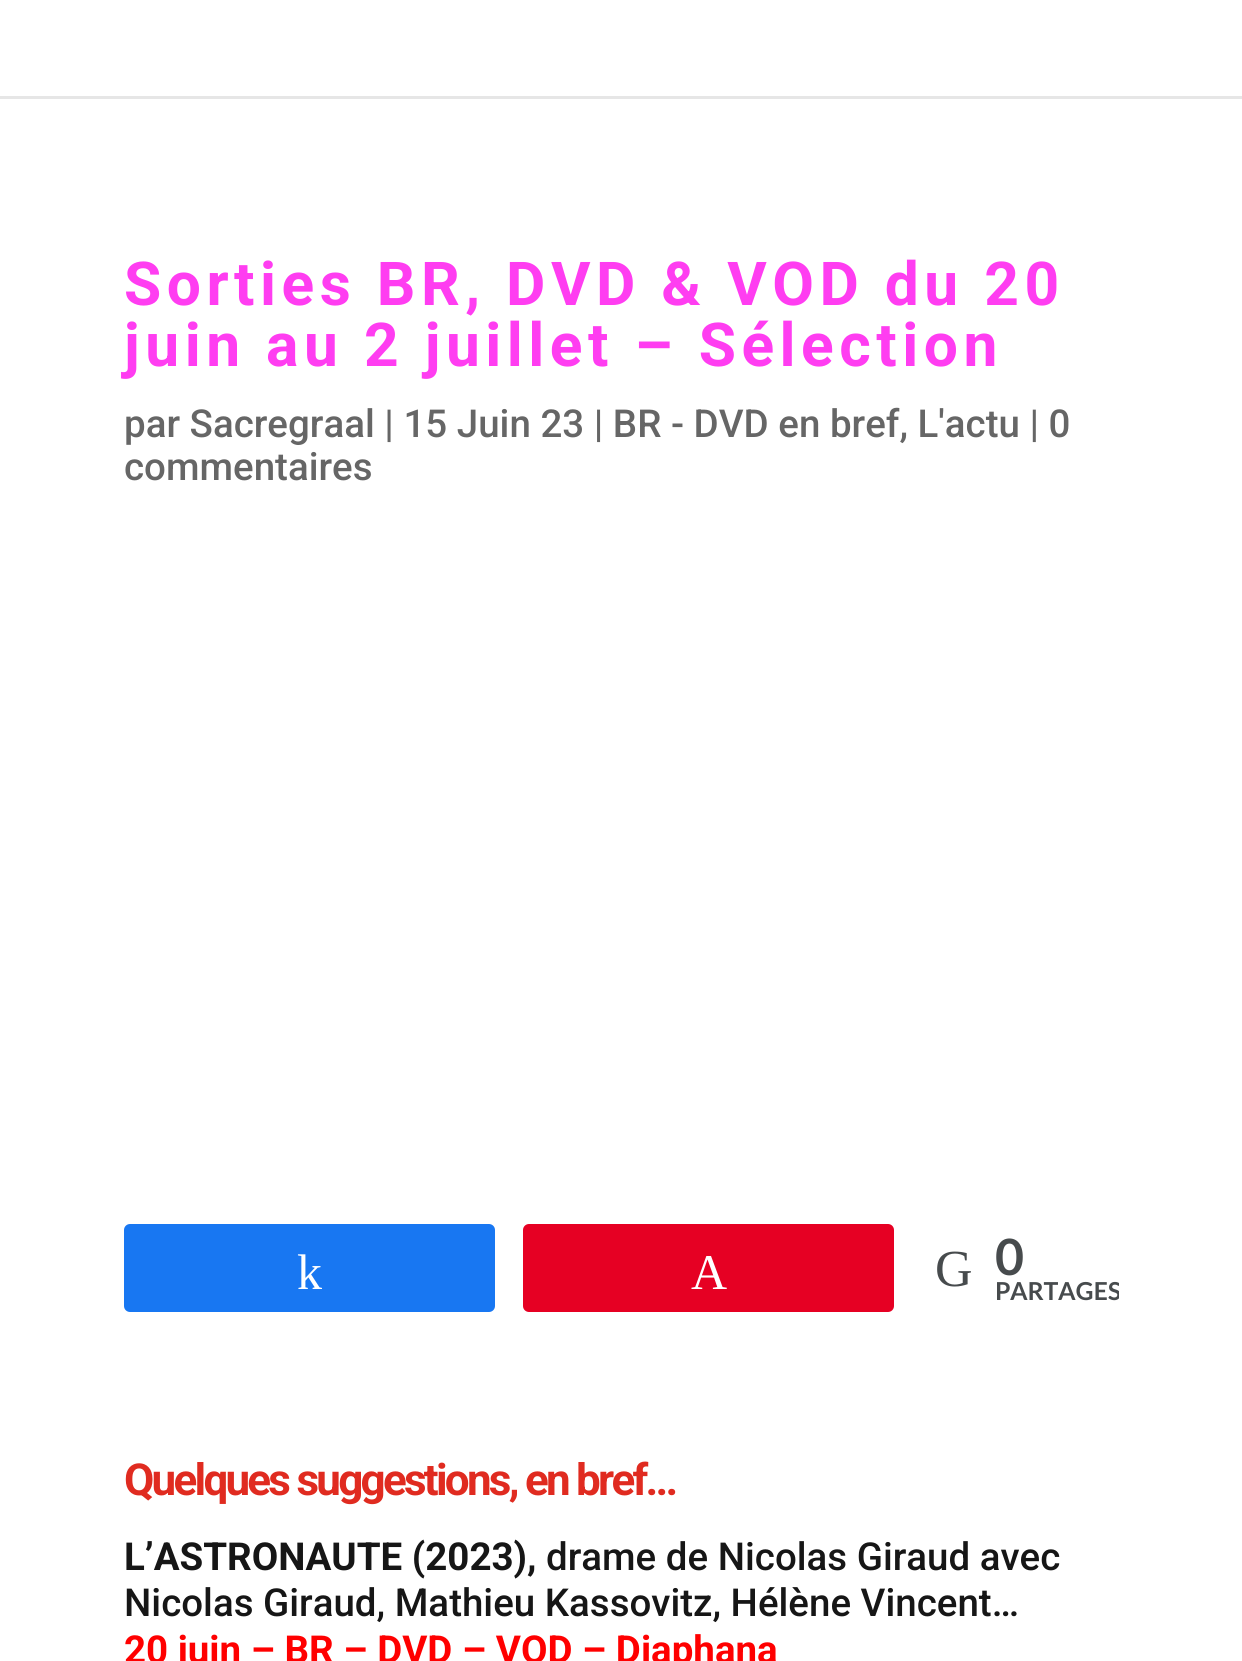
#include <cairo.h>
#include <math.h>
#include <stddef.h>


static void set_color(cairo_t *cr, unsigned color) {
    cairo_set_source_rgb(cr, (color >> 16) / 255.0, (color >> 8 & 255) / 255.0, (color & 255) / 255.0);
}

static void draw_text(cairo_t *cr, double x, double y, const char *s, const char *family, double size, int italic, int bold, unsigned color) {
    cairo_select_font_face(cr, family, italic ? CAIRO_FONT_SLANT_ITALIC : CAIRO_FONT_SLANT_NORMAL,
        bold ? CAIRO_FONT_WEIGHT_BOLD : CAIRO_FONT_WEIGHT_NORMAL);
    cairo_set_font_size(cr, size);
    set_color(cr, color);
    cairo_move_to(cr, x, y);
    cairo_show_text(cr, s);
}

static void draw_spaced(cairo_t *cr, double x, double y, const char *s, double letter, double word) {
    cairo_move_to(cr, x, y);
    while (*s) {
        char ch[5] = {0};
        int n = 0;
        do ch[n++] = *s++; while ((*s & 0xC0) == 0x80);
        cairo_show_text(cr, ch);
        cairo_rel_move_to(cr, letter + word * (*ch == ' '), 0);
    }
}

static void fill_rect(cairo_t *cr, double x, double y, double w, double h, unsigned color) {
    set_color(cr, color);
    cairo_rectangle(cr, x, y, w, h);
    cairo_fill(cr);
}

static void rounded_rect(cairo_t *cr, double x, double y, double w, double h, double r) {
    cairo_new_sub_path(cr);
    cairo_arc(cr, x + w - r, y + h - r, r, 0, M_PI / 2);
    cairo_arc(cr, x + r, y + h - r, r, M_PI / 2, M_PI);
    cairo_arc(cr, x + r, y + r, r, M_PI, 1.5 * M_PI);
    cairo_arc(cr, x + w - r, y + r, r, 1.5 * M_PI, 2 * M_PI);
    cairo_close_path(cr);
}

int main(void) {
    cairo_surface_t *surface = cairo_image_surface_create(CAIRO_FORMAT_RGB24, 1242, 1661);
    cairo_t *cr = cairo_create(surface);
    cairo_font_options_t *options = cairo_font_options_create();
    cairo_font_options_set_hint_metrics(options, CAIRO_HINT_METRICS_OFF);
    cairo_font_options_set_hint_style(options, CAIRO_HINT_STYLE_NONE);
    cairo_set_font_options(cr, options);
    cairo_set_miter_limit(cr, 4);
    set_color(cr, 0xFFFFFF);
    cairo_paint(cr);
    fill_rect(cr, 0, 96, 1242, 3, 0xE6E6E6);
    cairo_select_font_face(cr, "Roboto", CAIRO_FONT_SLANT_NORMAL, CAIRO_FONT_WEIGHT_BOLD);
    cairo_set_font_size(cr, 60.5);
    set_color(cr, 0xFF3DF1);
    draw_spaced(cr, 124, 305, "Sorties BR, DVD & VOD du 20", 5.5, 0);
    draw_spaced(cr, 124, 366, "juin au 2 juillet – Sélection", 5.5, 0);
    draw_text(cr, 124, 437, "par Sacregraal | 15 Juin 23 | BR - DVD en bref, L'actu | 0", "Roboto Medium", 38.5, 0, 0, 0x666666);
    draw_text(cr, 124, 480, "commentaires", "Roboto Medium", 38.5, 0, 0, 0x666666);
    set_color(cr, 0x1877F2);
    rounded_rect(cr, 125.5, 1225.5, 368, 85, 4.5);
    cairo_fill_preserve(cr);
    cairo_set_line_width(cr, 3);
    cairo_stroke(cr);
    draw_text(cr, 297, 1289, "k", "Liberation Serif", 50, 0, 0, 0xFFFFFF);
    set_color(cr, 0xE60023);
    rounded_rect(cr, 524.5, 1225.5, 368, 85, 4.5);
    cairo_fill_preserve(cr);
    cairo_stroke(cr);
    draw_text(cr, 691, 1289, "A", "Liberation Serif", 50, 0, 0, 0xFFFFFF);
    draw_text(cr, 935, 1286, "G", "Liberation Serif", 52, 0, 0, 0x474B4D);
    draw_text(cr, 995, 1275, "0", "Lato", 50, 0, 1, 0x474B4D);
    cairo_save(cr);
    cairo_rectangle(cr, 124, 1224, 995, 93);
    cairo_clip(cr);
    draw_text(cr, 995, 1300, "PARTAGES", "Lato", 24.75, 0, 1, 0x474B4D);
    cairo_restore(cr);
    cairo_select_font_face(cr, "Roboto", CAIRO_FONT_SLANT_NORMAL, CAIRO_FONT_WEIGHT_BOLD);
    cairo_set_font_size(cr, 44);
    set_color(cr, 0xE02B20);
    draw_spaced(cr, 124, 1495, "Quelques suggestions, en bref...", -2.75, 0);
    draw_text(cr, 124, 1570, "L’ASTRONAUTE (2023),", "Roboto", 38.5, 0, 1, 0x161616);
    draw_text(cr, 546, 1570, "drame de Nicolas Giraud avec", "Roboto Medium", 38.5, 0, 0, 0x161616);
    draw_text(cr, 124, 1616, "Nicolas Giraud, Mathieu Kassovitz, Hélène Vincent…", "Roboto Medium", 38.5, 0, 0, 0x161616);
    draw_text(cr, 124, 1663, "20 juin – BR – DVD – VOD – Diaphana", "Roboto", 38.5, 0, 1, 0xFF0000);
    cairo_surface_write_to_png(surface, "output.png");
    cairo_font_options_destroy(options);
    cairo_destroy(cr);
    cairo_surface_destroy(surface);
    return 0;
}
